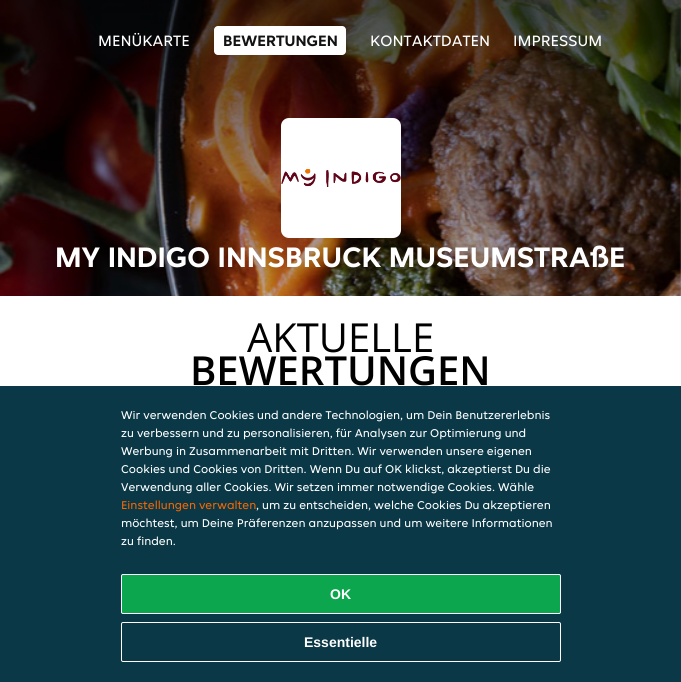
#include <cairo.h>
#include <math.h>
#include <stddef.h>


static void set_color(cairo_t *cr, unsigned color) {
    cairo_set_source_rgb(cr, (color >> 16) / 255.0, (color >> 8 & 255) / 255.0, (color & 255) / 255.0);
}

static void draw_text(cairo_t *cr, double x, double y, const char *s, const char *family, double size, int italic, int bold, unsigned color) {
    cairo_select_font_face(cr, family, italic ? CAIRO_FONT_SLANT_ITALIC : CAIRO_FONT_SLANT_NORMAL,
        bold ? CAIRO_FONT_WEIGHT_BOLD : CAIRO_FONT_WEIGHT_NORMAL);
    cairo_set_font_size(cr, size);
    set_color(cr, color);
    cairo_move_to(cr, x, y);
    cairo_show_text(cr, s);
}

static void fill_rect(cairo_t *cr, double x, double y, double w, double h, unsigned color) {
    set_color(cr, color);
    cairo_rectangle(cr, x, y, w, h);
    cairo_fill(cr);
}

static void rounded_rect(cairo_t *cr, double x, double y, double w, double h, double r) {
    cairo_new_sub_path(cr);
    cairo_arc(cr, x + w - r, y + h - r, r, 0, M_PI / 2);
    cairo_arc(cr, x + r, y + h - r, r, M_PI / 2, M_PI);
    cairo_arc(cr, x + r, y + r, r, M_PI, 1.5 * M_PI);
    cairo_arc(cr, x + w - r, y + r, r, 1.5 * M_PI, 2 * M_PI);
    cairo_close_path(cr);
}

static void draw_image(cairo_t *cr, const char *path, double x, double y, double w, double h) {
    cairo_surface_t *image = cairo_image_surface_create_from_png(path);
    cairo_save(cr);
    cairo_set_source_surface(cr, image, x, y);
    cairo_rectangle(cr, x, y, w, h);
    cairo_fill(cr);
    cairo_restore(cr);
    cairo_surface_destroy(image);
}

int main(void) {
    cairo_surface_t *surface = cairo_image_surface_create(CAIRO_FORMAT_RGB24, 681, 682);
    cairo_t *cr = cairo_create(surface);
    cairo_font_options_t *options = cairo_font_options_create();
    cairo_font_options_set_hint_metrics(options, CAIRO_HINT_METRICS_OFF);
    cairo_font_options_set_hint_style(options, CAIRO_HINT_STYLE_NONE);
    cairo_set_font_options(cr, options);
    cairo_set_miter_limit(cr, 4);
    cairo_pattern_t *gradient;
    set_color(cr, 0xFFFFFF);
    cairo_paint(cr);
    draw_image(cr, "assets/img1.png", 0, 0, 681, 296);
    gradient = cairo_pattern_create_linear(340, 0, 341, 500);
    cairo_pattern_add_color_stop_rgba(gradient, 0, 0, 0, 0, 0.7);
    cairo_pattern_add_color_stop_rgba(gradient, 0.33, 0, 0, 0, 0.4);
    cairo_pattern_add_color_stop_rgba(gradient, 0.67, 0, 0, 0, 0.2);
    cairo_pattern_add_color_stop_rgba(gradient, 1, 0, 0, 0, 0);
    cairo_set_source(cr, gradient);
    cairo_pattern_destroy(gradient);
    cairo_rectangle(cr, 0, 0, 681, 296);
    cairo_fill(cr);
    draw_text(cr, 98, 46, "MENÜKARTE", "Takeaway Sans", 16, 0, 0, 0xFFFFFF);
    rounded_rect(cr, 214, 26, 132, 29, 4);
    cairo_fill(cr);
    draw_text(cr, 223, 46, "BEWERTUNGEN", "Takeaway Sans", 16, 0, 1, 0x121212);
    draw_text(cr, 370, 46, "KONTAKTDATEN", "Takeaway Sans", 16, 0, 0, 0xFFFFFF);
    draw_text(cr, 513, 46, "IMPRESSUM", "Takeaway Sans", 16, 0, 0, 0xFFFFFF);
    rounded_rect(cr, 281, 118, 120, 120, 8);
    cairo_fill(cr);
    draw_image(cr, "assets/img2.png", 281, 169, 120, 18);
    draw_text(cr, 55, 267, "MY INDIGO INNSBRUCK MUSEUMSTRAßE", "Takeaway Sans", 30, 0, 1, 0xFFFFFF);
    draw_text(cr, 247, 352, "AKTUELLE", "Open Sans", 40, 0, 0, 0x000000);
    draw_text(cr, 190, 385, "BEWERTUNGEN", "Open Sans SemiBold", 40, 0, 0, 0x000000);
    fill_rect(cr, 0, 386, 681, 296, 0x0A3847);
    draw_text(cr, 121, 419, "Wir verwenden Cookies und andere Technologien, um Dein Benutzererlebnis", "Takeaway Sans", 12, 0, 0, 0xFFFFFF);
    draw_text(cr, 121, 437, "zu verbessern und zu personalisieren, für Analysen zur Optimierung und", "Takeaway Sans", 12, 0, 0, 0xFFFFFF);
    draw_text(cr, 121, 455, "Werbung in Zusammenarbeit mit Dritten. Wir verwenden unsere eigenen", "Takeaway Sans", 12, 0, 0, 0xFFFFFF);
    draw_text(cr, 121, 473, "Cookies und Cookies von Dritten. Wenn Du auf OK klickst, akzeptierst Du die", "Takeaway Sans", 12, 0, 0, 0xFFFFFF);
    draw_text(cr, 121, 491, "Verwendung aller Cookies. Wir setzen immer notwendige Cookies. Wähle", "Takeaway Sans", 12, 0, 0, 0xFFFFFF);
    draw_text(cr, 121, 509, "Einstellungen verwalten", "Takeaway Sans", 12, 0, 0, 0xF86600);
    draw_text(cr, 256, 509, ", um zu entscheiden, welche Cookies Du akzeptieren", "Takeaway Sans", 12, 0, 0, 0xFFFFFF);
    draw_text(cr, 121, 527, "möchtest, um Deine Präferenzen anzupassen und um weitere Informationen", "Takeaway Sans", 12, 0, 0, 0xFFFFFF);
    draw_text(cr, 121, 545, "zu finden.", "Takeaway Sans", 12, 0, 0, 0xFFFFFF);
    set_color(cr, 0x0CA64F);
    rounded_rect(cr, 121.5, 574.5, 439, 39, 1.5);
    cairo_fill_preserve(cr);
    set_color(cr, 0xFFFFFF);
    cairo_set_line_width(cr, 1);
    cairo_stroke(cr);
    draw_text(cr, 330, 599, "OK", "Liberation Sans", 14, 0, 1, 0xFFFFFF);
    rounded_rect(cr, 121.5, 622.5, 439, 39, 1.5);
    cairo_stroke(cr);
    draw_text(cr, 304, 647, "Essentielle", "Liberation Sans", 14, 0, 1, 0xFFFFFF);
    cairo_surface_write_to_png(surface, "output.png");
    cairo_font_options_destroy(options);
    cairo_destroy(cr);
    cairo_surface_destroy(surface);
    return 0;
}
